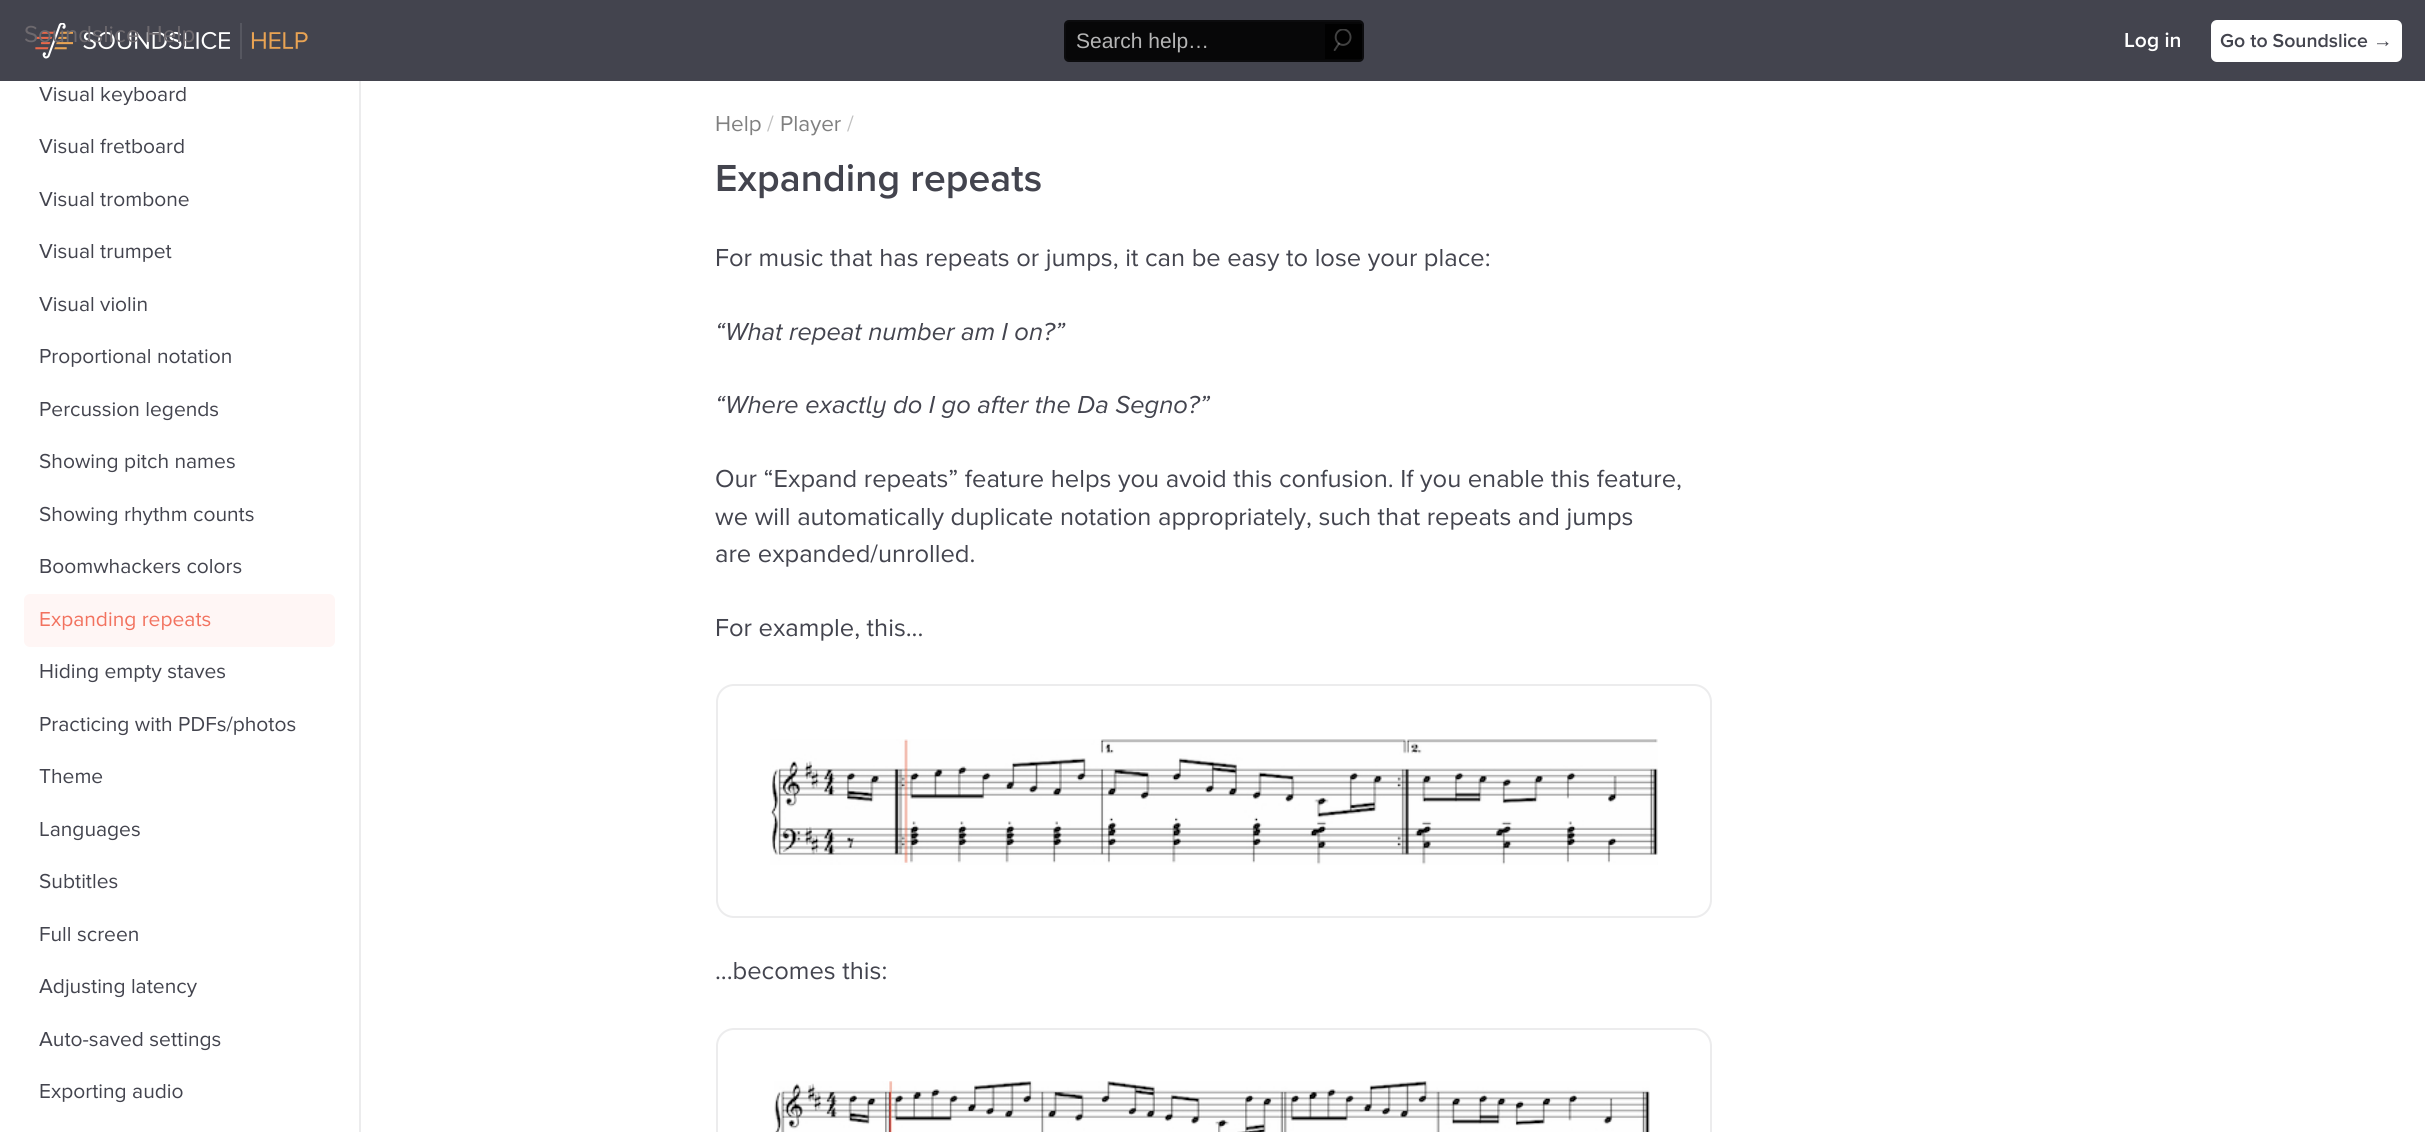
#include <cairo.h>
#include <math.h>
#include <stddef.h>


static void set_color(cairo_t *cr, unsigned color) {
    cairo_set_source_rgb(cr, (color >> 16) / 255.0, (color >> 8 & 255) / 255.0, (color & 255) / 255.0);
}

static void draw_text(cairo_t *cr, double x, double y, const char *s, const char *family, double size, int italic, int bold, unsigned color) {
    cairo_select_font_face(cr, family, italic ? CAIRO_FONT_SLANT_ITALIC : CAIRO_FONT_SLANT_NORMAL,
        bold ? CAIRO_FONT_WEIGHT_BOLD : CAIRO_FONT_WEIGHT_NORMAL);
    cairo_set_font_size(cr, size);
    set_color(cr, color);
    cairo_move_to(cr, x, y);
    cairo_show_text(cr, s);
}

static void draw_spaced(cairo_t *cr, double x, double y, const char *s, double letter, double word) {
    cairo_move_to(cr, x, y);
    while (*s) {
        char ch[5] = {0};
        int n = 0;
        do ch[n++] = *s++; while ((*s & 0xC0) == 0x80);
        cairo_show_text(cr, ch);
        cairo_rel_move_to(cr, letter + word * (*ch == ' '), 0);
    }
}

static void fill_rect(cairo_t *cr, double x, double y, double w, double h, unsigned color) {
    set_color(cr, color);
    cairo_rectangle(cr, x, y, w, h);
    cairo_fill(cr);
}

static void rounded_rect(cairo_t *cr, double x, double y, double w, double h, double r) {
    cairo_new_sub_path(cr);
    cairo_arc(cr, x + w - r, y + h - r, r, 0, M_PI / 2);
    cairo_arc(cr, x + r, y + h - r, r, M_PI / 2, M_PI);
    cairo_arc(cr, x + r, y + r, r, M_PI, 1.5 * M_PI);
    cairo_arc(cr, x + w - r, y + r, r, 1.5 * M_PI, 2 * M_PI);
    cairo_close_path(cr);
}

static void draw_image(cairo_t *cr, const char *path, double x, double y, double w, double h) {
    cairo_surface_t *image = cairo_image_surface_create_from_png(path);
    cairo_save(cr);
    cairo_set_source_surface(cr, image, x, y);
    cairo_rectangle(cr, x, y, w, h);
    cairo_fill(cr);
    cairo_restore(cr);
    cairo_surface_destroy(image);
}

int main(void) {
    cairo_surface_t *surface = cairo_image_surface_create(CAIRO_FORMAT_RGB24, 2425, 1132);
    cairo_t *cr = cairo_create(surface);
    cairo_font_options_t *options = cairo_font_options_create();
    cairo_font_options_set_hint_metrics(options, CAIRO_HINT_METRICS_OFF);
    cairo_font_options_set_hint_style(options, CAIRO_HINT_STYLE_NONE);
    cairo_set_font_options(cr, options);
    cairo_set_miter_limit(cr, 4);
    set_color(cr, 0xFFFFFF);
    cairo_paint(cr);
    fill_rect(cr, 0, 0, 2425, 81, 0x43444E);
    draw_image(cr, "assets/img1.png", 35, 23, 273, 36);
    draw_text(cr, 24, 42, "Soundslice Help", "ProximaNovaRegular", 24, 0, 0, 0x6D696E);
    set_color(cr, 0x070708);
    rounded_rect(cr, 1064, 20, 300, 42, 5);
    cairo_fill(cr);
    rounded_rect(cr, 1065, 21, 298, 40, 4);
    cairo_set_source_rgba(cr, 0.263, 0.267, 0.306, 0.1);
    cairo_stroke(cr);
    draw_text(cr, 1076, 48, "Search help…", "Liberation Sans", 21, 0, 0, 0xB5B5B5);
    cairo_set_source_rgba(cr, 0, 0, 0, 0.9);
    cairo_rectangle(cr, 1325, 24, 37, 35);
    cairo_fill(cr);
    draw_image(cr, "assets/img2.png", 1333, 29, 19, 22);
    draw_text(cr, 2124, 47, "Log in", "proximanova", 21, 0, 0, 0xFFFFFF);
    rounded_rect(cr, 2211, 20, 191, 42, 6);
    cairo_fill(cr);
    draw_text(cr, 2220, 47, "Go to Soundslice", "proximanova", 19.5, 0, 0, 0x43444E);
    draw_text(cr, 2373, 47, "→", "Liberation Sans", 19.5, 0, 1, 0x43444E);
    fill_rect(cr, 359, 81, 2, 1051, 0xECECED);
    draw_text(cr, 39, 101, "Visual keyboard", "ProximaNovaRegular", 21, 0, 0, 0x43444E);
    draw_text(cr, 39, 153, "Visual fretboard", "ProximaNovaRegular", 21, 0, 0, 0x43444E);
    draw_text(cr, 39, 206, "Visual trombone", "ProximaNovaRegular", 21, 0, 0, 0x43444E);
    draw_text(cr, 39, 258, "Visual trumpet", "ProximaNovaRegular", 21, 0, 0, 0x43444E);
    draw_text(cr, 39, 311, "Visual violin", "ProximaNovaRegular", 21, 0, 0, 0x43444E);
    draw_text(cr, 39, 363, "Proportional notation", "ProximaNovaRegular", 21, 0, 0, 0x43444E);
    draw_text(cr, 39, 416, "Percussion legends", "ProximaNovaRegular", 21, 0, 0, 0x43444E);
    draw_text(cr, 39, 468, "Showing pitch names", "ProximaNovaRegular", 21, 0, 0, 0x43444E);
    draw_text(cr, 39, 521, "Showing rhythm counts", "ProximaNovaRegular", 21, 0, 0, 0x43444E);
    draw_text(cr, 39, 573, "Boomwhackers colors", "ProximaNovaRegular", 21, 0, 0, 0x43444E);
    set_color(cr, 0xFFF6F5);
    rounded_rect(cr, 24, 594, 311, 53, 6);
    cairo_fill(cr);
    draw_text(cr, 39, 626, "Expanding repeats", "ProximaNovaRegular", 21, 0, 0, 0xF2725F);
    draw_text(cr, 39, 678, "Hiding empty staves", "ProximaNovaRegular", 21, 0, 0, 0x43444E);
    draw_text(cr, 39, 731, "Practicing with PDFs/photos", "ProximaNovaRegular", 21, 0, 0, 0x43444E);
    draw_text(cr, 39, 783, "Theme", "ProximaNovaRegular", 21, 0, 0, 0x43444E);
    draw_text(cr, 39, 836, "Languages", "ProximaNovaRegular", 21, 0, 0, 0x43444E);
    draw_text(cr, 39, 888, "Subtitles", "ProximaNovaRegular", 21, 0, 0, 0x43444E);
    draw_text(cr, 39, 941, "Full screen", "ProximaNovaRegular", 21, 0, 0, 0x43444E);
    draw_text(cr, 39, 993, "Adjusting latency", "ProximaNovaRegular", 21, 0, 0, 0x43444E);
    draw_text(cr, 39, 1046, "Auto-saved settings", "ProximaNovaRegular", 21, 0, 0, 0x43444E);
    draw_text(cr, 39, 1098, "Exporting audio", "ProximaNovaRegular", 21, 0, 0, 0x43444E);
    draw_text(cr, 715, 131, "Help", "ProximaNovaRegular", 22.5, 0, 0, 0x808080);
    draw_text(cr, 767, 131, "/", "ProximaNovaRegular", 22.5, 0, 0, 0xC0C0C0);
    draw_text(cr, 780, 131, "Player", "ProximaNovaRegular", 22.5, 0, 0, 0x808080);
    draw_text(cr, 847, 131, "/", "ProximaNovaRegular", 22.5, 0, 0, 0xC0C0C0);
    cairo_select_font_face(cr, "proximanova", CAIRO_FONT_SLANT_NORMAL, CAIRO_FONT_WEIGHT_NORMAL);
    cairo_set_font_size(cr, 39);
    set_color(cr, 0x43444E);
    draw_spaced(cr, 715, 191, "Expanding repeats", 0.1, 0);
    draw_text(cr, 715, 266, "For music that has repeats or jumps, it can be easy to lose your place:", "ProximaNovaRegular", 25.5, 0, 0, 0x43444E);
    draw_text(cr, 715, 340, "“What repeat number am I on?”", "proximanova", 25.5, 1, 0, 0x43444E);
    draw_text(cr, 715, 413, "“Where exactly do I go after the Da Segno?”", "proximanova", 25.5, 1, 0, 0x43444E);
    draw_text(cr, 715, 487, "Our “Expand repeats” feature helps you avoid this confusion. If you enable this feature,", "ProximaNovaRegular", 25.5, 0, 0, 0x43444E);
    draw_text(cr, 715, 525, "we will automatically duplicate notation appropriately, such that repeats and jumps", "ProximaNovaRegular", 25.5, 0, 0, 0x43444E);
    draw_text(cr, 715, 562, "are expanded/unrolled.", "ProximaNovaRegular", 25.5, 0, 0, 0x43444E);
    draw_text(cr, 715, 636, "For example, this...", "ProximaNovaRegular", 25.5, 0, 0, 0x43444E);
    rounded_rect(cr, 717, 685, 994, 232, 17);
    set_color(cr, 0xECECED);
    cairo_stroke(cr);
    draw_image(cr, "assets/img3.png", 770, 739, 888, 126);
    draw_text(cr, 715, 979, "...becomes this:", "ProximaNovaRegular", 25.5, 0, 0, 0x43444E);
    rounded_rect(cr, 717, 1029, 994, 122, 17);
    set_color(cr, 0xECECED);
    cairo_stroke(cr);
    draw_image(cr, "assets/img4.png", 774, 1081, 876, 51);
    cairo_surface_write_to_png(surface, "output.png");
    cairo_font_options_destroy(options);
    cairo_destroy(cr);
    cairo_surface_destroy(surface);
    return 0;
}
